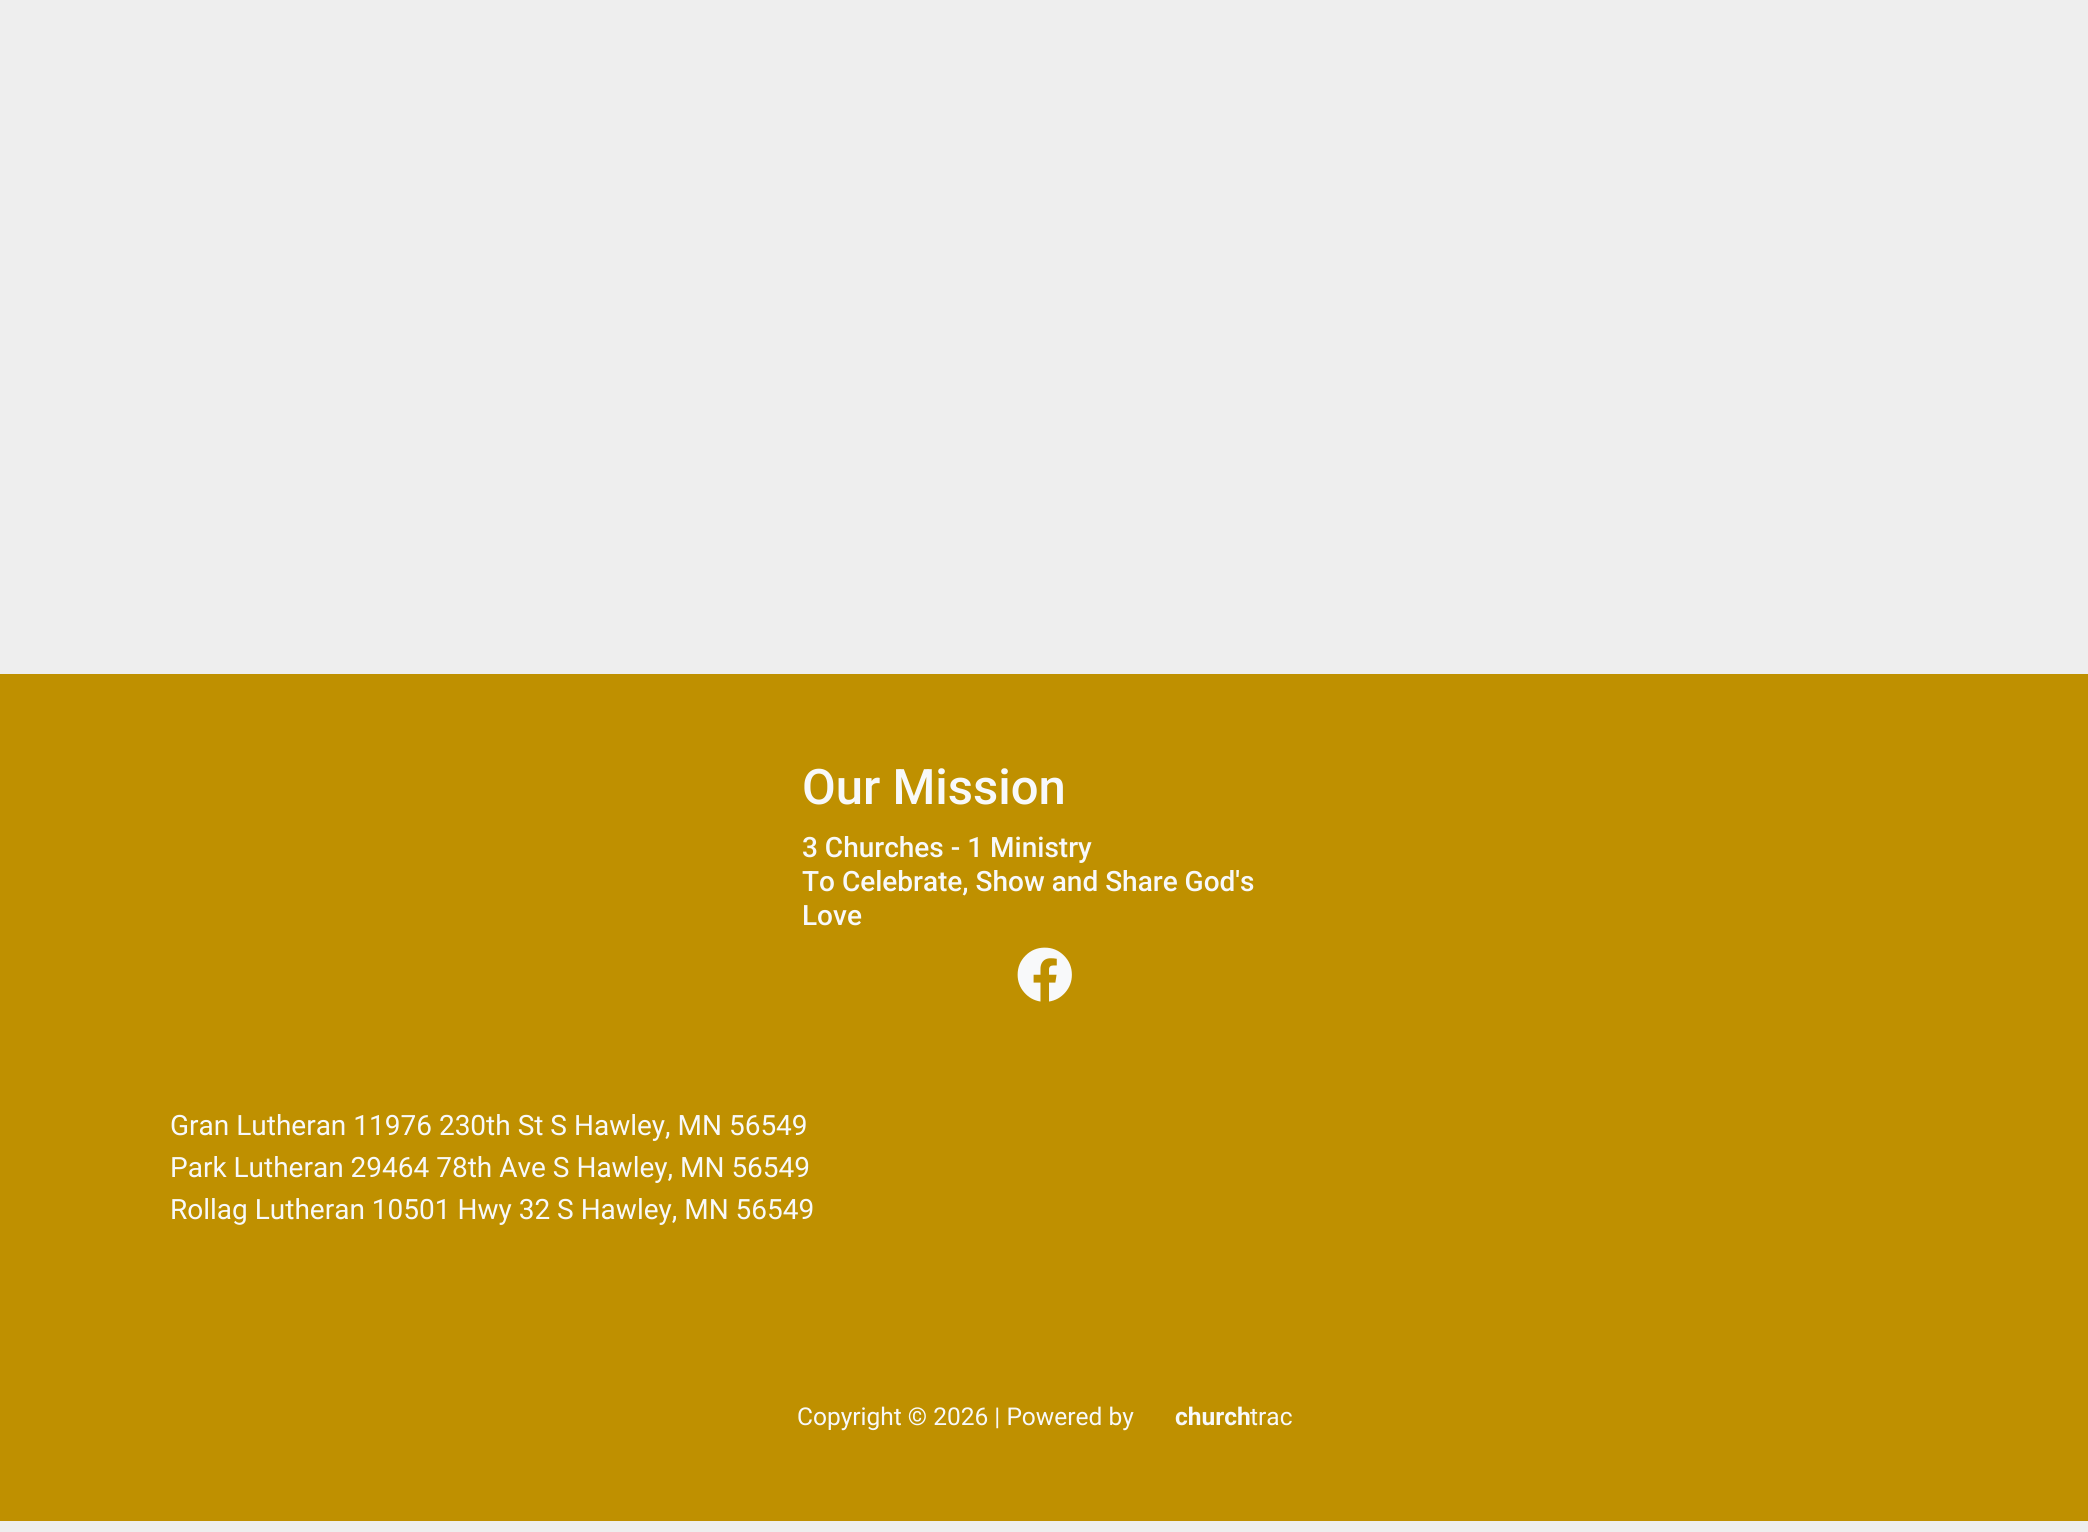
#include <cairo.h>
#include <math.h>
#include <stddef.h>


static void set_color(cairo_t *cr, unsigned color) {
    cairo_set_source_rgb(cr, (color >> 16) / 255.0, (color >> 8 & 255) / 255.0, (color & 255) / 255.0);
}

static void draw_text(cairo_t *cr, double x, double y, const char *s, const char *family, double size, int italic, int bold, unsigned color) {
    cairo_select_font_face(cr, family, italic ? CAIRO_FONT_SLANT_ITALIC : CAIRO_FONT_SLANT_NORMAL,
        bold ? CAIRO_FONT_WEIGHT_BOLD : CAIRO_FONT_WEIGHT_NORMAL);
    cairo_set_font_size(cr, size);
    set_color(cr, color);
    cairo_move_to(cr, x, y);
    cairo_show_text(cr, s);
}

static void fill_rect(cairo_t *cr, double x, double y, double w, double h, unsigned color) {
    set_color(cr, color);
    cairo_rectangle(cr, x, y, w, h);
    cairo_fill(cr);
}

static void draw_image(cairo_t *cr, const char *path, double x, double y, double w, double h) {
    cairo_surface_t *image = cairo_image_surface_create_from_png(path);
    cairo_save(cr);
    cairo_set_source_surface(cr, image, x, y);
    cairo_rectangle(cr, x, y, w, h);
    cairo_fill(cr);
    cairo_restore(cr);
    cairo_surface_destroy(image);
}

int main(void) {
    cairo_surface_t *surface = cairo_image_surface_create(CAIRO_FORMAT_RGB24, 2088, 1532);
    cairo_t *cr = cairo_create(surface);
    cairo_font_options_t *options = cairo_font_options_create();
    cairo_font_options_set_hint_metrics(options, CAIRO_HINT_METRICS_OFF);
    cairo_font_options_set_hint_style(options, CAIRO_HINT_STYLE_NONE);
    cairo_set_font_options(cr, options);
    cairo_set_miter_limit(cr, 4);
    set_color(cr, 0xEEEEEE);
    cairo_paint(cr);
    fill_rect(cr, 0, 674, 2088, 847, 0xBF9000);
    draw_text(cr, 802, 804, "Our Mission", "Roboto Medium", 49, 0, 0, 0xF8F9FA);
    draw_text(cr, 802, 857, "3 Churches - 1 Ministry", "Roboto Medium", 28, 0, 0, 0xF8F9FA);
    draw_text(cr, 802, 891, "To Celebrate, Show and Share God's", "Roboto Medium", 28, 0, 0, 0xF8F9FA);
    draw_text(cr, 802, 925, "Love", "Roboto Medium", 28, 0, 0, 0xF8F9FA);
    draw_image(cr, "assets/img1.png", 1017, 947, 55, 55);
    draw_text(cr, 170, 1135, "Gran Lutheran 11976 230th St S Hawley, MN 56549", "Roboto", 28, 0, 0, 0xF8F9FA);
    draw_text(cr, 170, 1177, "Park Lutheran 29464 78th Ave S Hawley, MN 56549", "Roboto", 28, 0, 0, 0xF8F9FA);
    draw_text(cr, 170, 1219, "Rollag Lutheran 10501 Hwy 32 S Hawley, MN 56549", "Roboto", 28, 0, 0, 0xF8F9FA);
    draw_text(cr, 797, 1425, "Copyright © 2026 | Powered by", "Roboto", 24.5, 0, 0, 0xF8F9FA);
    draw_text(cr, 1175, 1425, "church", "Roboto", 24.5, 0, 1, 0xF8F9FA);
    draw_text(cr, 1250, 1425, "trac", "Roboto", 24.5, 0, 0, 0xF8F9FA);
    cairo_surface_write_to_png(surface, "output.png");
    cairo_font_options_destroy(options);
    cairo_destroy(cr);
    cairo_surface_destroy(surface);
    return 0;
}
